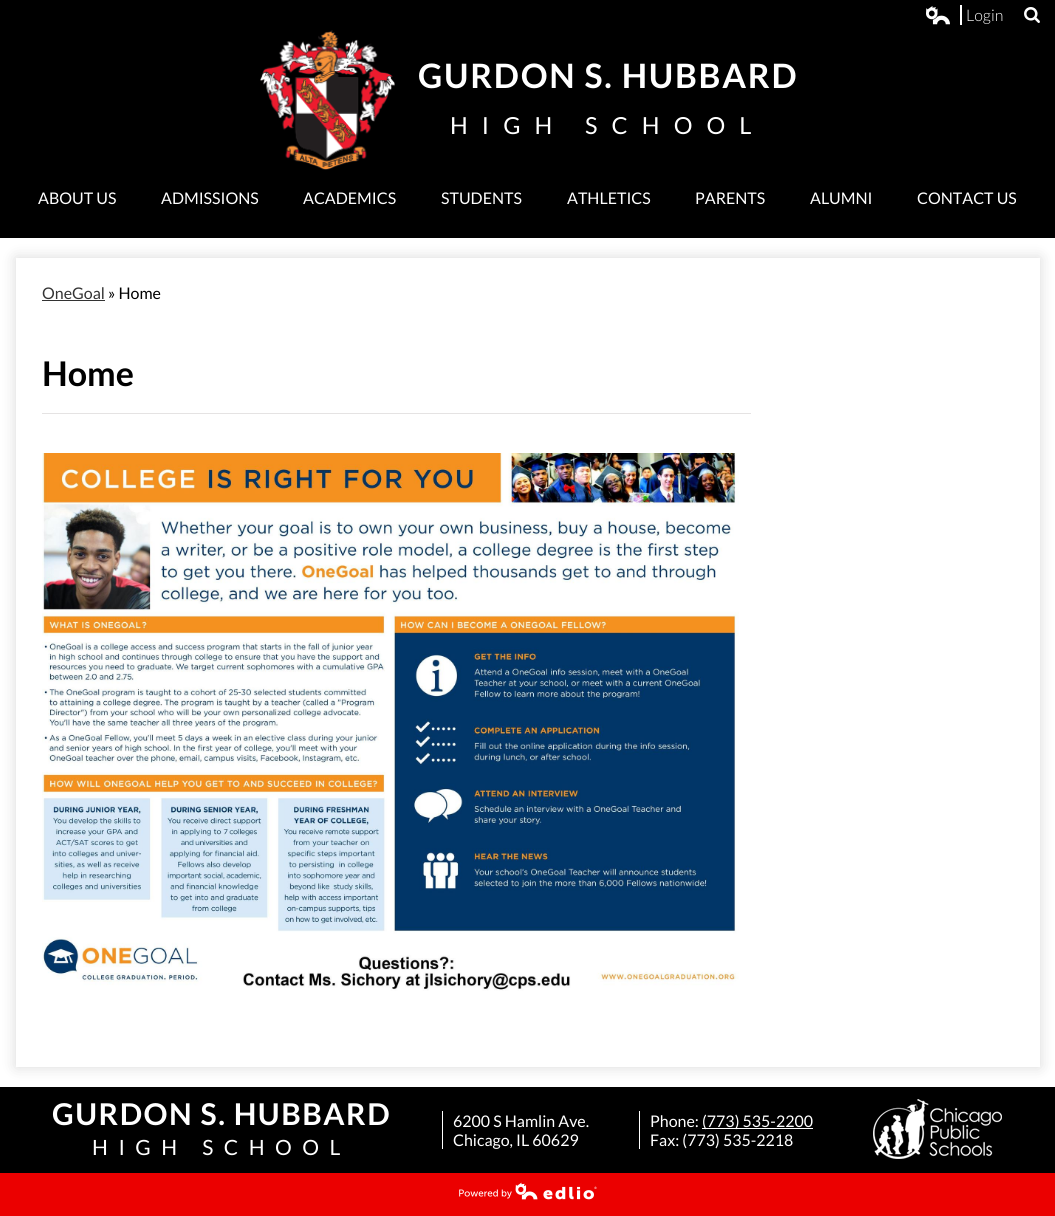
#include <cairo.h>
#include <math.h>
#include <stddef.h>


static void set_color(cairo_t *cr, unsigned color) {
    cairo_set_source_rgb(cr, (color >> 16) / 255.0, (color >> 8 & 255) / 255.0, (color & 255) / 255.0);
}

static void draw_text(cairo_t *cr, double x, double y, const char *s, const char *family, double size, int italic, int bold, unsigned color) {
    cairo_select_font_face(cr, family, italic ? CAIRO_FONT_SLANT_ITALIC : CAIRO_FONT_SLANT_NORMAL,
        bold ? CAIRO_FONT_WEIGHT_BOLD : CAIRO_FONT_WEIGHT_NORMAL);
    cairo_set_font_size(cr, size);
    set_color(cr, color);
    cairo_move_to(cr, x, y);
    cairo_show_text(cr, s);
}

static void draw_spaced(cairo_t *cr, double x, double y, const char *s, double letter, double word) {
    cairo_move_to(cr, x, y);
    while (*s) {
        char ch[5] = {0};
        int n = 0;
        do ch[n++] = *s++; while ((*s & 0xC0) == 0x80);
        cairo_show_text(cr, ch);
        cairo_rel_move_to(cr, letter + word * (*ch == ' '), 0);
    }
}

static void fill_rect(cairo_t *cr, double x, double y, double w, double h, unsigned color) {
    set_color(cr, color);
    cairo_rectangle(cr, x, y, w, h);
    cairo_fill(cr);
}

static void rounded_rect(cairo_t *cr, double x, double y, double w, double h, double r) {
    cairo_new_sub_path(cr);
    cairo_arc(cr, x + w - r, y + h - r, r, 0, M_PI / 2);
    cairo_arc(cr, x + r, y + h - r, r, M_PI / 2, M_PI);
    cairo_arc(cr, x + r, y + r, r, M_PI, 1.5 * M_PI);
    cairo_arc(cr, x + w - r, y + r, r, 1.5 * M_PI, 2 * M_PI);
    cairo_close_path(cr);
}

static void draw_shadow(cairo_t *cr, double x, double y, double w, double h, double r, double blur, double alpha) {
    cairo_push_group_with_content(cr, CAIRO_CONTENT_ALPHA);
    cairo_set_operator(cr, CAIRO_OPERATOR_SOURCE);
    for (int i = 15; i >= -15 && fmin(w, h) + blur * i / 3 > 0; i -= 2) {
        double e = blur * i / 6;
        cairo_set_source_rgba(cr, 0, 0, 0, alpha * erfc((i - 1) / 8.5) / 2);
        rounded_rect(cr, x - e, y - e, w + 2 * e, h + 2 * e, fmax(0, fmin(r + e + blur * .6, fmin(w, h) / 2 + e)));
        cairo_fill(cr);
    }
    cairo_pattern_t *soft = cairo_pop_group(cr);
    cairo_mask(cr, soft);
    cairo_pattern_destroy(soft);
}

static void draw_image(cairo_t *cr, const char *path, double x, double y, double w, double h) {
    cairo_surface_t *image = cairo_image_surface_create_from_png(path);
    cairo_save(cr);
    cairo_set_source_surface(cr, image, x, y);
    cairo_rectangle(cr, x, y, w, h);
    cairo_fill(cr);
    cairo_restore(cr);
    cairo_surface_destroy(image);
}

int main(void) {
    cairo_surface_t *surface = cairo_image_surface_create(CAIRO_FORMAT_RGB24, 1055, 1216);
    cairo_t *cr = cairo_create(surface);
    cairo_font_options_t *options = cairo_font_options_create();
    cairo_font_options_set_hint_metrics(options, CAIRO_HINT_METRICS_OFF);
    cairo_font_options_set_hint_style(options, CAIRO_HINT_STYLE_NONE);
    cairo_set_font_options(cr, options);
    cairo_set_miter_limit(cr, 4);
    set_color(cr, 0xFFFFFF);
    cairo_paint(cr);
    fill_rect(cr, 0, 1087, 1055, 86, 0x000000);
    cairo_save(cr);
    cairo_set_fill_rule(cr, CAIRO_FILL_RULE_EVEN_ODD);
    cairo_new_path(cr);
    cairo_move_to(cr, 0, 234);
    cairo_line_to(cr, 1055, 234);
    cairo_line_to(cr, 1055, 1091);
    cairo_line_to(cr, 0, 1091);
    cairo_close_path(cr);
    cairo_move_to(cr, 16, 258);
    cairo_line_to(cr, 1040, 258);
    cairo_line_to(cr, 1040, 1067);
    cairo_line_to(cr, 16, 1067);
    cairo_close_path(cr);
    cairo_clip(cr);
    set_color(cr, 0x000000);
    draw_shadow(cr, 16, 258, 1024, 809, 0, 7.5, 0.15);
    cairo_restore(cr);
    fill_rect(cr, 0, 0, 1055, 238, 0x000000);
    fill_rect(cr, 960, 5, 2, 20, 0xFFFFFF);
    draw_image(cr, "assets/img1.png", 926, 6, 24, 19);
    draw_text(cr, 966, 21, "Login", "Lato Light", 16, 0, 0, 0xFFFFFF);
    draw_image(cr, "assets/img2.png", 1024, 7, 16, 16);
    draw_image(cr, "assets/img3.png", 260, 30, 135, 140);
    cairo_select_font_face(cr, "Lato", CAIRO_FONT_SLANT_NORMAL, CAIRO_FONT_WEIGHT_BOLD);
    cairo_set_font_size(cr, 33.6);
    draw_spaced(cr, 418, 88, "GURDON S. HUBBARD", 1.7, 0);
    cairo_select_font_face(cr, "Lato", CAIRO_FONT_SLANT_NORMAL, CAIRO_FONT_WEIGHT_NORMAL);
    cairo_set_font_size(cr, 23.5);
    draw_spaced(cr, 450, 134, "HIGH SCHOOL", 14.1, 0);
    draw_text(cr, 38, 204, "ABOUT US", "Lato", 16, 0, 0, 0xFFFFFF);
    draw_text(cr, 161, 204, "ADMISSIONS", "Lato", 16, 0, 0, 0xFFFFFF);
    draw_text(cr, 303, 204, "ACADEMICS", "Lato", 16, 0, 0, 0xFFFFFF);
    draw_text(cr, 441, 204, "STUDENTS", "Lato", 16, 0, 0, 0xFFFFFF);
    draw_text(cr, 567, 204, "ATHLETICS", "Lato", 16, 0, 0, 0xFFFFFF);
    draw_text(cr, 695, 204, "PARENTS", "Lato", 16, 0, 0, 0xFFFFFF);
    draw_text(cr, 810, 204, "ALUMNI", "Lato", 16, 0, 0, 0xFFFFFF);
    draw_text(cr, 917, 204, "CONTACT US", "Lato", 16, 0, 0, 0xFFFFFF);
    draw_text(cr, 42, 299, "OneGoal", "Lato", 16, 0, 0, 0x333333);
    fill_rect(cr, 42, 300, 63, 1, 0x333333);
    draw_text(cr, 108, 299, "» Home", "Lato", 16, 0, 0, 0x000000);
    draw_text(cr, 42, 386, "Home", "Lato", 34, 0, 1, 0x000000);
    fill_rect(cr, 42, 413, 709, 1, 0xE5E3E3);
    draw_image(cr, "assets/img4.png", 42, 453, 697, 538);
    cairo_set_font_size(cr, 30);
    set_color(cr, 0xFFFFFF);
    draw_spaced(cr, 52, 1125, "GURDON S. HUBBARD", 1.5, 0);
    cairo_select_font_face(cr, "Lato", CAIRO_FONT_SLANT_NORMAL, CAIRO_FONT_WEIGHT_NORMAL);
    cairo_set_font_size(cr, 21);
    draw_spaced(cr, 92, 1155, "HIGH SCHOOL", 10.5, 0);
    fill_rect(cr, 442, 1111, 1, 38, 0xFFFFFF);
    draw_text(cr, 453, 1127, "6200 S Hamlin Ave.", "Lato", 16, 0, 0, 0xFFFFFF);
    draw_text(cr, 453, 1146, "Chicago, IL 60629", "Lato", 16, 0, 0, 0xFFFFFF);
    fill_rect(cr, 639, 1111, 1, 38, 0xFFFFFF);
    draw_text(cr, 650, 1127, "Phone:", "Lato", 16, 0, 0, 0xFFFFFF);
    fill_rect(cr, 702, 1128, 111, 1, 0xFFFFFF);
    draw_text(cr, 702, 1127, "(773) 535-2200", "Lato", 16, 0, 0, 0xFFFFFF);
    draw_text(cr, 650, 1146, "Fax: (773) 535-2218", "Lato", 16, 0, 0, 0xFFFFFF);
    draw_image(cr, "assets/img5.png", 873, 1099, 129, 60);
    fill_rect(cr, 0, 1173, 1055, 43, 0xEB0000);
    draw_image(cr, "assets/img6.png", 459, 1182, 138, 18);
    cairo_surface_write_to_png(surface, "output.png");
    cairo_font_options_destroy(options);
    cairo_destroy(cr);
    cairo_surface_destroy(surface);
    return 0;
}
